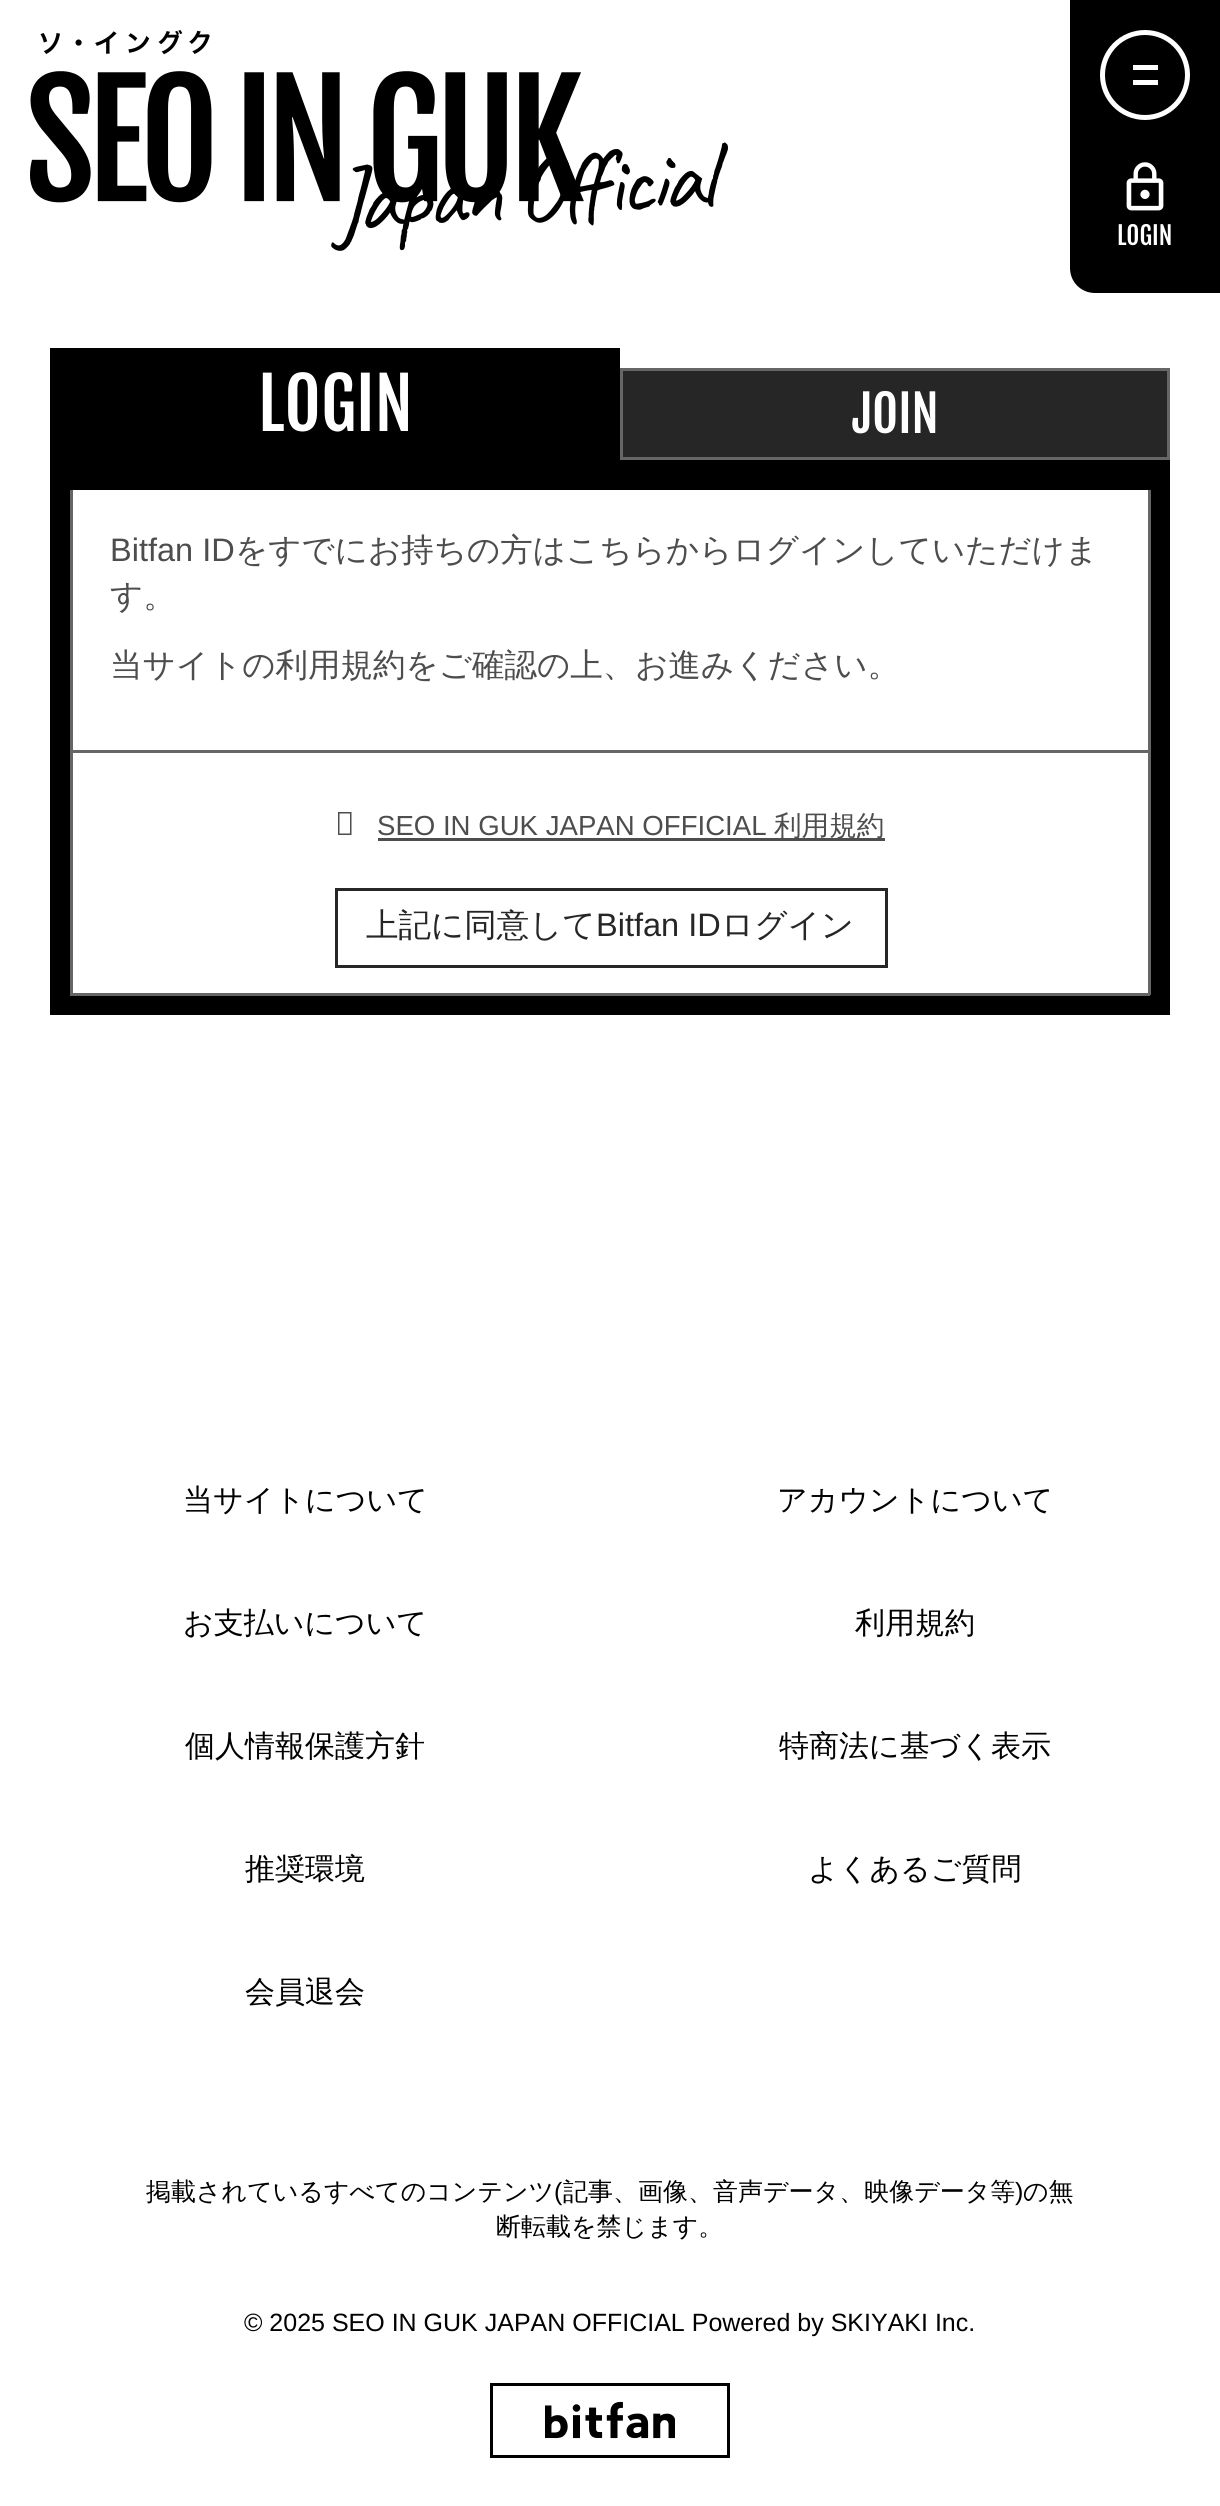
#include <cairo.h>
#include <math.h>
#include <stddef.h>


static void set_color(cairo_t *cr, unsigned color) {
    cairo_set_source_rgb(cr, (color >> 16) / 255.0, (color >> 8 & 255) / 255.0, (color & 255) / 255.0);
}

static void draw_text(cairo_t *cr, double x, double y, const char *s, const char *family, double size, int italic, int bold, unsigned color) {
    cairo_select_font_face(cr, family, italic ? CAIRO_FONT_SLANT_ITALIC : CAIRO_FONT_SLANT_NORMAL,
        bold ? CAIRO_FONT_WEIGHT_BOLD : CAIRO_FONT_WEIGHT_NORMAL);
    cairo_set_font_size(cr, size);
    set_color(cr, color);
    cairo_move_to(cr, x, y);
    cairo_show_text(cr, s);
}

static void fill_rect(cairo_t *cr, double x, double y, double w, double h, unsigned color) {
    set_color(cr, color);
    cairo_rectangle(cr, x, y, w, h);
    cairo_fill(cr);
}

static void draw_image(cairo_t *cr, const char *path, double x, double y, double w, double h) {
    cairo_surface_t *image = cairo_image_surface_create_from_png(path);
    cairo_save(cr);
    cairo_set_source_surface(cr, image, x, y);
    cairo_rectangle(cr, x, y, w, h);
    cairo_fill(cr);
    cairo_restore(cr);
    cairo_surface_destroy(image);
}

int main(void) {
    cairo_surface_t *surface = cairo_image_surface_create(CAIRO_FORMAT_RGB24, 1220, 2506);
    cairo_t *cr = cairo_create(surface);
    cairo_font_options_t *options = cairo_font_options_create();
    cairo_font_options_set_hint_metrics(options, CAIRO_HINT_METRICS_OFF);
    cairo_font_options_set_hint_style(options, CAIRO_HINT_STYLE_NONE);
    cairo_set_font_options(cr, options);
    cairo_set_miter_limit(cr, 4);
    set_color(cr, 0xFFFFFF);
    cairo_paint(cr);
    draw_image(cr, "assets/img1.png", 30, 30, 698, 221);
    set_color(cr, 0x000000);
    cairo_new_path(cr);
    cairo_move_to(cr, 1070, 0);
    cairo_line_to(cr, 1220, 0);
    cairo_line_to(cr, 1220, 293);
    cairo_line_to(cr, 1095, 293);
    cairo_curve_to(cr, 1081, 293, 1070, 282, 1070, 268);
    cairo_close_path(cr);
    cairo_fill(cr);
    cairo_arc(cr, 1145, 75, 42.5, 0, 2 * M_PI);
    set_color(cr, 0xFFFFFF);
    cairo_set_line_width(cr, 5);
    cairo_stroke(cr);
    fill_rect(cr, 1133, 65, 25, 5, 0xFFFFFF);
    fill_rect(cr, 1133, 80, 25, 5, 0xFFFFFF);
    draw_image(cr, "assets/img2.png", 1126, 162, 38, 49);
    draw_text(cr, 1117, 245, "LOGIN", "Fjalla One", 25, 0, 0, 0xFFFFFF);
    fill_rect(cr, 50, 348, 570, 112, 0x000000);
    draw_text(cr, 258, 431, "LOGIN", "Fjalla One", 70, 0, 0, 0xFFFFFF);
    set_color(cr, 0x262626);
    cairo_rectangle(cr, 621.5, 369.5, 547, 89);
    cairo_fill_preserve(cr);
    set_color(cr, 0x666666);
    cairo_set_line_width(cr, 3);
    cairo_stroke(cr);
    draw_text(cr, 852, 433, "JOIN", "Fjalla One", 50, 0, 0, 0xFFFFFF);
    fill_rect(cr, 50, 460, 1120, 555, 0x000000);
    fill_rect(cr, 73, 490, 1075, 503, 0xFFFFFF);
    fill_rect(cr, 1148, 490, 3, 505, 0x666666);
    fill_rect(cr, 70, 993, 1080, 3, 0x666666);
    fill_rect(cr, 70, 490, 3, 505, 0x666666);
    draw_text(cr, 110, 561, "Bitfan ID", "Liberation Sans", 32.5, 0, 0, 0x4D4D4D);
    draw_text(cr, 235, 561, "をすでにお持ちの方はこちらからログインしていただけま", "WenQuanYi Zen Hei Medium", 32.5, 0, 0, 0x4D4D4D);
    draw_text(cr, 110, 607, "す。", "WenQuanYi Zen Hei Medium", 32.5, 0, 0, 0x4D4D4D);
    draw_text(cr, 110, 676, "当サイトの利用規約をご確認の上、お進みください。", "WenQuanYi Zen Hei Medium", 32.5, 0, 0, 0x4D4D4D);
    fill_rect(cr, 73, 750, 1075, 3, 0x666666);
    set_color(cr, 0x4D4D4D);
    cairo_new_path(cr);
    cairo_move_to(cr, 338, 835);
    cairo_line_to(cr, 338, 812);
    cairo_line_to(cr, 351.5, 812);
    cairo_line_to(cr, 351.5, 835);
    cairo_close_path(cr);
    cairo_move_to(cr, 339.5, 833.5);
    cairo_line_to(cr, 350, 833.5);
    cairo_line_to(cr, 350, 813.5);
    cairo_line_to(cr, 339.5, 813.5);
    cairo_close_path(cr);
    cairo_fill(cr);
    draw_text(cr, 377, 835, "SEO IN GUK JAPAN OFFICIAL", "Liberation Sans", 27.6, 0, 0, 0x4D4D4D);
    fill_rect(cr, 378, 838, 507, 3, 0x4D4D4D);
    draw_text(cr, 774, 835, "利用規約", "WenQuanYi Zen Hei Medium", 27.6, 0, 0, 0x4D4D4D);
    cairo_rectangle(cr, 336.5, 889.5, 550, 77);
    set_color(cr, 0x262626);
    cairo_stroke(cr);
    draw_text(cr, 366, 936, "上記に同意して", "WenQuanYi Zen Hei Medium", 32.5, 0, 0, 0x262626);
    draw_text(cr, 596, 936, "Bitfan ID", "Liberation Sans", 32.5, 0, 0, 0x262626);
    draw_text(cr, 721, 936, "ログイン", "WenQuanYi Zen Hei Medium", 32.5, 0, 0, 0x262626);
    draw_text(cr, 183, 1510, "当サイトについて", "WenQuanYi Zen Hei Medium", 30, 0, 0, 0x000000);
    draw_text(cr, 777, 1510, "アカウントについて", "WenQuanYi Zen Hei Medium", 30, 0, 0, 0x000000);
    draw_text(cr, 183, 1633, "お支払いについて", "WenQuanYi Zen Hei Medium", 30, 0, 0, 0x000000);
    draw_text(cr, 855, 1633, "利用規約", "WenQuanYi Zen Hei Medium", 30, 0, 0, 0x000000);
    draw_text(cr, 185, 1756, "個人情報保護方針", "WenQuanYi Zen Hei Medium", 30, 0, 0, 0x000000);
    draw_text(cr, 779, 1756, "特商法に基づく表示", "WenQuanYi Zen Hei Medium", 30, 0, 0, 0x000000);
    draw_text(cr, 245, 1879, "推奨環境", "WenQuanYi Zen Hei Medium", 30, 0, 0, 0x000000);
    draw_text(cr, 808, 1879, "よくあるご質問", "WenQuanYi Zen Hei Medium", 30, 0, 0, 0x000000);
    draw_text(cr, 245, 2002, "会員退会", "WenQuanYi Zen Hei Medium", 30, 0, 0, 0x000000);
    draw_text(cr, 146, 2200, "掲載されているすべてのコンテンツ", "WenQuanYi Zen Hei Medium", 25, 0, 0, 0x000000);
    draw_text(cr, 554, 2200, "(", "Liberation Sans", 25, 0, 0, 0x000000);
    draw_text(cr, 563, 2200, "記事、画像、音声データ、映像データ等", "WenQuanYi Zen Hei Medium", 25, 0, 0, 0x000000);
    draw_text(cr, 1015, 2200, ")", "Liberation Sans", 25, 0, 0, 0x000000);
    draw_text(cr, 1023, 2200, "の無", "WenQuanYi Zen Hei Medium", 25, 0, 0, 0x000000);
    draw_text(cr, 496, 2235, "断転載を禁じます。", "WenQuanYi Zen Hei Medium", 25, 0, 0, 0x000000);
    draw_text(cr, 244, 2331, "© 2025 SEO IN GUK JAPAN OFFICIAL Powered by SKIYAKI Inc.", "Liberation Sans", 25, 0, 0, 0x000000);
    cairo_rectangle(cr, 491.5, 2384.5, 237, 72);
    cairo_stroke(cr);
    draw_image(cr, "assets/img3.png", 545, 2401, 130, 38);
    cairo_surface_write_to_png(surface, "output.png");
    cairo_font_options_destroy(options);
    cairo_destroy(cr);
    cairo_surface_destroy(surface);
    return 0;
}
